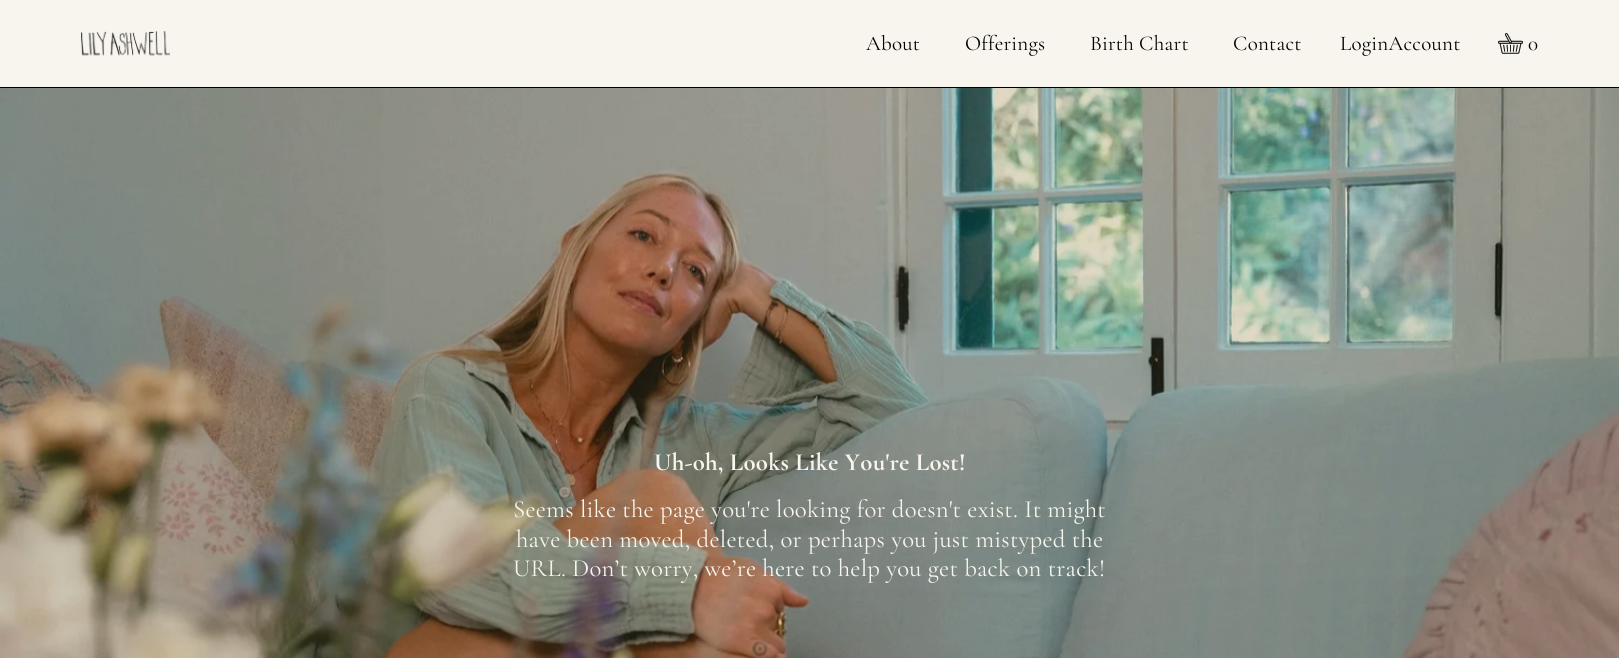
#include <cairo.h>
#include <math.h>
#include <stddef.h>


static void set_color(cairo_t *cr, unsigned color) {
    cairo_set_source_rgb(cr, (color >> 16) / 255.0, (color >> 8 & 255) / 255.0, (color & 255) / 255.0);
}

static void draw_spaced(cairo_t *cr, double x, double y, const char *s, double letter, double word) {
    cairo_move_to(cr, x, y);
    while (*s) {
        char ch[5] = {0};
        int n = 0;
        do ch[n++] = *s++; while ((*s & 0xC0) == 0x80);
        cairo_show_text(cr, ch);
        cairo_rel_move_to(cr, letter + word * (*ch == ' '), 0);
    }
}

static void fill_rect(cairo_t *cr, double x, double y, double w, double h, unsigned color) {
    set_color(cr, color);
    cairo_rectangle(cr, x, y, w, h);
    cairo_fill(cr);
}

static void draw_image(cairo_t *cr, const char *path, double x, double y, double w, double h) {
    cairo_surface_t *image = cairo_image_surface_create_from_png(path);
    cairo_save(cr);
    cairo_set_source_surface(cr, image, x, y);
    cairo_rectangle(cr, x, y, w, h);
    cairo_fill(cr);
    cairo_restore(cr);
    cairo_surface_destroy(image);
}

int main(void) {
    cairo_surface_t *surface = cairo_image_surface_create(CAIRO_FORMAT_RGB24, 1619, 658);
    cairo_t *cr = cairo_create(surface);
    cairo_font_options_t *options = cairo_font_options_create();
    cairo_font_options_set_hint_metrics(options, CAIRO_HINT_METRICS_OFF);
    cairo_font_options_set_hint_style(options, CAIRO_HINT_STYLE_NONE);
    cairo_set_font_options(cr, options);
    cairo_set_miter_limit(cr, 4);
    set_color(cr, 0xFFFFFF);
    cairo_paint(cr);
    fill_rect(cr, 0, 0, 1619, 87, 0xF8F5EE);
    draw_image(cr, "assets/img1.png", 81, 31, 89, 25);
    cairo_select_font_face(cr, "Cormorant Garamond", CAIRO_FONT_SLANT_NORMAL, CAIRO_FONT_WEIGHT_NORMAL);
    cairo_set_font_size(cr, 21);
    set_color(cr, 0x000000);
    draw_spaced(cr, 866, 50, "About", 0.25, 0);
    draw_spaced(cr, 965, 50, "Offerings", 0.25, 0);
    draw_spaced(cr, 1090, 50, "Birth Chart", 0.25, 0);
    draw_spaced(cr, 1233, 50, "Contact", 0.25, 0);
    draw_spaced(cr, 1340, 50, "LoginAccount", 0.25, 0);
    draw_image(cr, "assets/img2.png", 1498, 33, 25, 21);
    draw_spaced(cr, 1528, 50, "0", 0.25, 0);
    fill_rect(cr, 0, 87, 1619, 1, 0x000000);
    draw_image(cr, "assets/img3.png", 0, 88, 1619, 570);
    cairo_select_font_face(cr, "Cormorant Garamond", CAIRO_FONT_SLANT_NORMAL, CAIRO_FONT_WEIGHT_BOLD);
    cairo_set_font_size(cr, 24.75);
    set_color(cr, 0xF8F5EE);
    draw_spaced(cr, 654, 470, "Uh-oh, Looks Like You're Lost!", 0.25, 0);
    cairo_select_font_face(cr, "Cormorant Garamond", CAIRO_FONT_SLANT_NORMAL, CAIRO_FONT_WEIGHT_NORMAL);
    draw_spaced(cr, 513, 517, "Seems like the page you're looking for doesn't exist. It might", 0.25, 0);
    draw_spaced(cr, 516, 547, "have been moved, deleted, or perhaps you just mistyped the", 0.25, 0);
    draw_spaced(cr, 513, 576, "URL. Don’t worry, we’re here to help you get back on track!", 0.25, 0);
    cairo_surface_write_to_png(surface, "output.png");
    cairo_font_options_destroy(options);
    cairo_destroy(cr);
    cairo_surface_destroy(surface);
    return 0;
}
